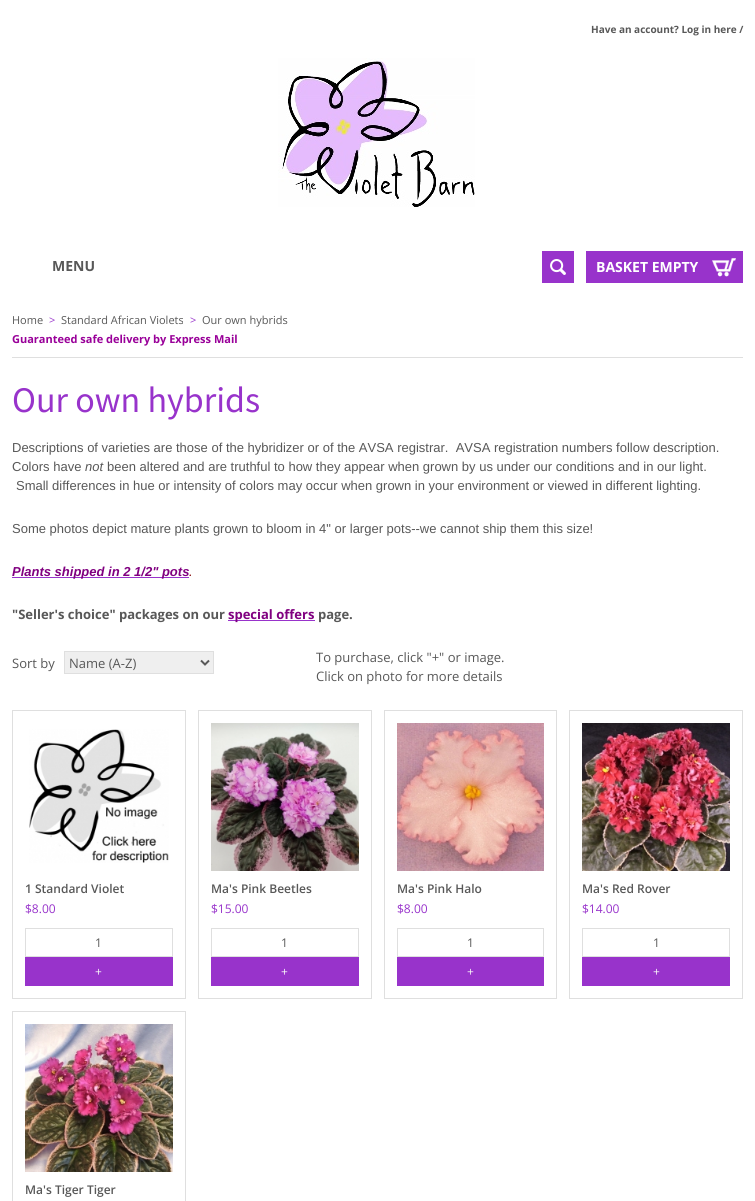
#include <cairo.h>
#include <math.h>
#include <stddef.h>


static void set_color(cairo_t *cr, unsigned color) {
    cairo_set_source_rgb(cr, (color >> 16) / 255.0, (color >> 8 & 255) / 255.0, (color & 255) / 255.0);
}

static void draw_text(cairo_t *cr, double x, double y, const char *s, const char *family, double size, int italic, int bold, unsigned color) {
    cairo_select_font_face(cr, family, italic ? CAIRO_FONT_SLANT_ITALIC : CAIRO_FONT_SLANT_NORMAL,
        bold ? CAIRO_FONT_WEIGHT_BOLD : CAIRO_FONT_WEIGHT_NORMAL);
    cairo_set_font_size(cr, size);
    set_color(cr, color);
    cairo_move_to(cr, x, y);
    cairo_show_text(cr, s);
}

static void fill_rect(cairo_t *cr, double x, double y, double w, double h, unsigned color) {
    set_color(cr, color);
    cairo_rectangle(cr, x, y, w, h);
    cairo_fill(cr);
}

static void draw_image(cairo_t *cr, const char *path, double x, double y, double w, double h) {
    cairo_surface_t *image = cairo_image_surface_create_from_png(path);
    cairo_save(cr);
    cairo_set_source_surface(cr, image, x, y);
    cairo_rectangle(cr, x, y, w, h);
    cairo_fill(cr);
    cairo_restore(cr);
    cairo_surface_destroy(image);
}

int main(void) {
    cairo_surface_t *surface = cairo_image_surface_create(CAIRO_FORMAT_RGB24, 755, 1201);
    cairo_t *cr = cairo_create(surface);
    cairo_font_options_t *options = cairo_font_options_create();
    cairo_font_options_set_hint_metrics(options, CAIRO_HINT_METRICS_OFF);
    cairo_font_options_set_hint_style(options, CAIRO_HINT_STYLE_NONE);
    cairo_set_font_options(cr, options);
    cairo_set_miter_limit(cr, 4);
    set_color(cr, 0xFFFFFF);
    cairo_paint(cr);
    draw_text(cr, 591, 33, "Have an account? Log in here /", "Open Sans", 10, 0, 1, 0x585858);
    draw_image(cr, "assets/img1.png", 278, 58, 197, 149);
    draw_text(cr, 52, 271, "MENU", "Open Sans", 14, 0, 1, 0x585858);
    fill_rect(cr, 542, 251, 32, 32, 0x9833CB);
    draw_image(cr, "assets/img2.png", 550, 259, 16, 16);
    fill_rect(cr, 586, 251, 157, 32, 0x9833CB);
    draw_image(cr, "assets/img3.png", 712, 258, 24, 19);
    draw_text(cr, 596, 272, "BASKET EMPTY", "Open Sans", 14, 0, 1, 0xFFFFFF);
    fill_rect(cr, 12, 357, 731, 1, 0xDFDFDF);
    draw_text(cr, 12, 324, "Home", "Open Sans", 11, 0, 0, 0x585858);
    draw_text(cr, 49, 324, ">", "Open Sans", 11, 0, 0, 0x9833CB);
    draw_text(cr, 61, 324, "Standard African Violets", "Open Sans", 11, 0, 0, 0x585858);
    draw_text(cr, 190, 324, ">", "Open Sans", 11, 0, 0, 0x9833CB);
    draw_text(cr, 202, 324, "Our own hybrids", "Open Sans", 11, 0, 0, 0x585858);
    draw_text(cr, 12, 343, "Guaranteed safe delivery by Express Mail", "Open Sans", 11, 0, 1, 0x990099);
    draw_text(cr, 12, 412, "Our own hybrids", "Source Sans Pro", 36, 0, 0, 0x9833CB);
    draw_text(cr, 12, 452, "Descriptions of varieties are those of the hybridizer or of the AVSA registrar.  AVSA registration numbers follow description.", "Liberation Sans", 13, 0, 0, 0x585858);
    draw_text(cr, 12, 471, "Colors have", "Liberation Sans", 13, 0, 0, 0x585858);
    draw_text(cr, 85, 471, "not", "Liberation Sans", 13, 1, 0, 0x585858);
    draw_text(cr, 107, 471, "been altered and are truthful to how they appear when grown by us under our conditions and in our light.", "Liberation Sans", 13, 0, 0, 0x585858);
    draw_text(cr, 16, 490, "Small differences in hue or intensity of colors may occur when grown in your environment or viewed in different lighting.", "Liberation Sans", 13, 0, 0, 0x585858);
    draw_text(cr, 12, 533, "Some photos depict mature plants grown to bloom in 4\" or larger pots--we cannot ship them this size!", "Liberation Sans", 13, 0, 0, 0x585858);
    fill_rect(cr, 12, 577, 177, 1, 0x9833CB);
    draw_text(cr, 12, 576, "Plants shipped in 2 1/2\" pots", "Liberation Sans", 13, 1, 1, 0x800080);
    draw_text(cr, 189, 576, ".", "Liberation Sans", 13, 1, 0, 0x800000);
    draw_text(cr, 12, 619, "\"Seller's choice\" packages on our", "Open Sans", 13, 0, 1, 0x585858);
    fill_rect(cr, 228, 620, 87, 1, 0x9833CB);
    draw_text(cr, 228, 619, "special offers", "Open Sans", 13, 0, 1, 0x800080);
    draw_text(cr, 318, 619, "page.", "Open Sans", 13, 0, 1, 0x585858);
    draw_text(cr, 12, 668, "Sort by", "Open Sans", 13, 0, 0, 0x585858);
    set_color(cr, 0xEFEFEF);
    cairo_rectangle(cr, 64.5, 651.5, 149, 22);
    cairo_fill_preserve(cr);
    set_color(cr, 0xDFDFDF);
    cairo_set_line_width(cr, 1);
    cairo_stroke(cr);
    cairo_new_path(cr);
    cairo_move_to(cr, 201, 660.5);
    cairo_line_to(cr, 205, 664.5);
    cairo_line_to(cr, 209, 660.5);
    set_color(cr, 0x585858);
    cairo_set_line_width(cr, 2);
    cairo_stroke(cr);
    draw_text(cr, 69, 668, "Name (A-Z)", "Open Sans", 13, 0, 0, 0x585858);
    draw_text(cr, 316, 662, "To purchase, click \"+\" or image.", "Open Sans", 13, 0, 0, 0x585858);
    draw_text(cr, 316, 681, "Click on photo for more details", "Open Sans", 13, 0, 0, 0x585858);
    cairo_rectangle(cr, 12.5, 710.5, 173, 288);
    set_color(cr, 0xDFDFDF);
    cairo_set_line_width(cr, 1);
    cairo_stroke(cr);
    draw_image(cr, "assets/img4.png", 29, 729, 140, 134);
    draw_text(cr, 25, 893, "1 Standard Violet", "Open Sans SemiBold", 12, 0, 0, 0x585858);
    draw_text(cr, 25, 913, "$8.00", "Open Sans", 12, 0, 0, 0x9833CB);
    cairo_rectangle(cr, 25.5, 928.5, 147, 28);
    set_color(cr, 0xDFDFDF);
    cairo_stroke(cr);
    draw_text(cr, 95, 947, "1", "Open Sans", 12, 0, 0, 0x585858);
    fill_rect(cr, 25, 957, 148, 29, 0x9833CB);
    draw_text(cr, 95, 976, "+", "Open Sans", 12, 0, 0, 0xF7F7F7);
    cairo_rectangle(cr, 198.5, 710.5, 173, 288);
    set_color(cr, 0xDFDFDF);
    cairo_stroke(cr);
    draw_image(cr, "assets/img5.png", 211, 723, 148, 148);
    draw_text(cr, 211, 893, "Ma's Pink Beetles", "Open Sans SemiBold", 12, 0, 0, 0x585858);
    draw_text(cr, 211, 913, "$15.00", "Open Sans", 12, 0, 0, 0x9833CB);
    cairo_rectangle(cr, 211.5, 928.5, 147, 28);
    set_color(cr, 0xDFDFDF);
    cairo_stroke(cr);
    draw_text(cr, 281, 947, "1", "Open Sans", 12, 0, 0, 0x585858);
    fill_rect(cr, 211, 957, 148, 29, 0x9833CB);
    draw_text(cr, 281, 976, "+", "Open Sans", 12, 0, 0, 0xF7F7F7);
    cairo_rectangle(cr, 384.5, 710.5, 172, 288);
    set_color(cr, 0xDFDFDF);
    cairo_stroke(cr);
    draw_image(cr, "assets/img6.png", 397, 723, 147, 148);
    draw_text(cr, 397, 893, "Ma's Pink Halo", "Open Sans SemiBold", 12, 0, 0, 0x585858);
    draw_text(cr, 397, 913, "$8.00", "Open Sans", 12, 0, 0, 0x9833CB);
    cairo_rectangle(cr, 397.5, 928.5, 146, 28);
    set_color(cr, 0xDFDFDF);
    cairo_stroke(cr);
    draw_text(cr, 467, 947, "1", "Open Sans", 12, 0, 0, 0x585858);
    fill_rect(cr, 397, 957, 147, 29, 0x9833CB);
    draw_text(cr, 467, 976, "+", "Open Sans", 12, 0, 0, 0xF7F7F7);
    cairo_rectangle(cr, 569.5, 710.5, 173, 288);
    set_color(cr, 0xDFDFDF);
    cairo_stroke(cr);
    draw_image(cr, "assets/img7.png", 582, 723, 148, 148);
    draw_text(cr, 582, 893, "Ma's Red Rover", "Open Sans SemiBold", 12, 0, 0, 0x585858);
    draw_text(cr, 582, 913, "$14.00", "Open Sans", 12, 0, 0, 0x9833CB);
    cairo_rectangle(cr, 582.5, 928.5, 147, 28);
    set_color(cr, 0xDFDFDF);
    cairo_stroke(cr);
    draw_text(cr, 653, 947, "1", "Open Sans", 12, 0, 0, 0x585858);
    fill_rect(cr, 582, 957, 148, 29, 0x9833CB);
    draw_text(cr, 653, 976, "+", "Open Sans", 12, 0, 0, 0xF7F7F7);
    cairo_rectangle(cr, 12.5, 1011.5, 173, 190);
    set_color(cr, 0xDFDFDF);
    cairo_stroke(cr);
    draw_image(cr, "assets/img8.png", 25, 1024, 148, 148);
    draw_text(cr, 25, 1194, "Ma's Tiger Tiger", "Open Sans SemiBold", 12, 0, 0, 0x585858);
    cairo_surface_write_to_png(surface, "output.png");
    cairo_font_options_destroy(options);
    cairo_destroy(cr);
    cairo_surface_destroy(surface);
    return 0;
}
